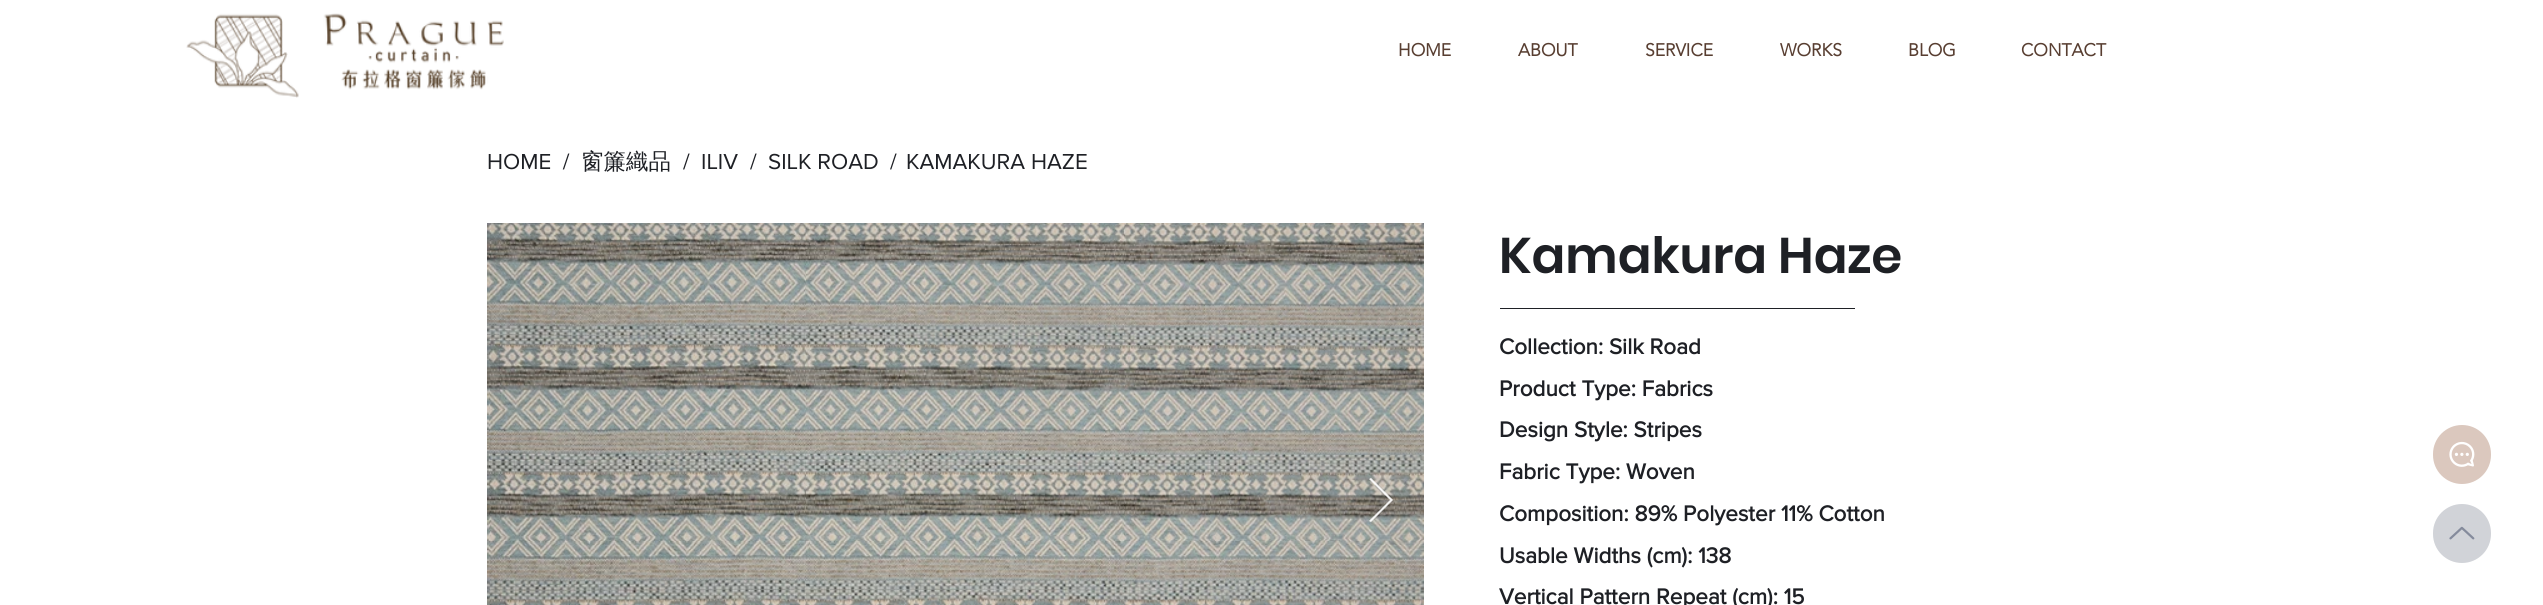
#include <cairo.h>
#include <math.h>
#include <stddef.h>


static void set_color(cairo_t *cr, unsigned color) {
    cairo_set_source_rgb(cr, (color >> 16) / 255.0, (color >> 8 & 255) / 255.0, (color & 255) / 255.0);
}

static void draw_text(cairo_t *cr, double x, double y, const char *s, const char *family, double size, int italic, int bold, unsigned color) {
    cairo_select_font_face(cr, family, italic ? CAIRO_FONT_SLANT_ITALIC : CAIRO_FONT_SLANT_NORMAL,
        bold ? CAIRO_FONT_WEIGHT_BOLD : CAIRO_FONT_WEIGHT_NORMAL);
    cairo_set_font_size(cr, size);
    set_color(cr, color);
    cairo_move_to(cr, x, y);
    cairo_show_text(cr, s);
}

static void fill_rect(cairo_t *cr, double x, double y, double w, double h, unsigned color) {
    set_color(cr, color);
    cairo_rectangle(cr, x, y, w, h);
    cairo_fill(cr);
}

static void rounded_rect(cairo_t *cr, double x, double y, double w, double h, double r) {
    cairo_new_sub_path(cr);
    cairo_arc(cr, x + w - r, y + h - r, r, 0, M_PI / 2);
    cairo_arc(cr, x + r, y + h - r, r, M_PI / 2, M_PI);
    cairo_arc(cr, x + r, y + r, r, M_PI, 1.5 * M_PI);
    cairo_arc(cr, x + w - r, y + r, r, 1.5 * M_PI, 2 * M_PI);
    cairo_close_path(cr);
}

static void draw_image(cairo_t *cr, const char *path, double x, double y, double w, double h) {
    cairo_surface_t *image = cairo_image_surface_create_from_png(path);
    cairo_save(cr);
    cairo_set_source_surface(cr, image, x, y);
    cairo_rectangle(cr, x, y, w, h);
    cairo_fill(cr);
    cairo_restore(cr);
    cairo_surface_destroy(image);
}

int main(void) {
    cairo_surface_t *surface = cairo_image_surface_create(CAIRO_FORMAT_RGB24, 2543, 605);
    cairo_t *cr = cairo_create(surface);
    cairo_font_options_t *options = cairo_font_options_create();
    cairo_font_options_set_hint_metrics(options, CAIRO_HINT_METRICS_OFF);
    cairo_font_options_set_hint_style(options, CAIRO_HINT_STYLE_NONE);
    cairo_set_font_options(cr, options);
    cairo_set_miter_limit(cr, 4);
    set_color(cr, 0xFFFFFF);
    cairo_paint(cr);
    draw_image(cr, "assets/img1.png", 186, 13, 318, 85);
    draw_text(cr, 1398, 56, "HOME", "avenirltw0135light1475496", 17.5, 0, 1, 0x583E31);
    draw_text(cr, 1518, 56, "ABOUT", "avenirltw0135light1475496", 17.5, 0, 1, 0x583E31);
    draw_text(cr, 1645, 56, "SERVICE", "avenirltw0135light1475496", 17.5, 0, 1, 0x583E31);
    draw_text(cr, 1780, 56, "WORKS", "avenirltw0135light1475496", 17.5, 0, 1, 0x583E31);
    draw_text(cr, 1908, 56, "BLOG", "avenirltw0135light1475496", 17.5, 0, 1, 0x583E31);
    draw_text(cr, 2021, 56, "CONTACT", "avenirltw0135light1475496", 17.5, 0, 1, 0x583E31);
    draw_text(cr, 487, 169, "HOME  /", "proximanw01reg", 22.5, 0, 0, 0x1E2025);
    draw_text(cr, 581, 169, "窗簾織品", "WenQuanYi Zen Hei Medium", 22.5, 0, 0, 0x1E2025);
    draw_text(cr, 683, 169, "/", "proximanw01reg", 22.5, 0, 0, 0x1E2025);
    draw_text(cr, 701, 169, "ILIV", "proximanw01reg", 22.5, 0, 0, 0x1E2025);
    draw_text(cr, 750, 169, "/", "proximanw01reg", 22.5, 0, 0, 0x1E2025);
    draw_text(cr, 768, 169, "SILK ROAD", "proximanw01reg", 22.5, 0, 0, 0x1E2025);
    draw_text(cr, 890, 169, "/", "proximanw01reg", 22.5, 0, 0, 0x1E2025);
    draw_text(cr, 906, 169, "KAMAKURA HAZE", "proximanw01reg", 22.5, 0, 0, 0x1E2025);
    draw_image(cr, "assets/img2.png", 487, 223, 937, 382);
    cairo_set_source_rgba(cr, 1, 1, 1, 0.9);
    cairo_new_path(cr);
    cairo_move_to(cr, 1369, 479);
    cairo_line_to(cr, 1371, 478);
    cairo_line_to(cr, 1393, 500);
    cairo_line_to(cr, 1371, 522);
    cairo_line_to(cr, 1369, 521);
    cairo_line_to(cr, 1390, 500);
    cairo_close_path(cr);
    cairo_fill(cr);
    draw_text(cr, 1499, 273, "Kamakura Haze", "Poppins SemiBold", 50, 0, 0, 0x1E2025);
    fill_rect(cr, 1500, 308, 355, 1, 0x1E2025);
    draw_text(cr, 1499, 354, "Collection: Silk Road", "proximanw01reg", 22.5, 0, 1, 0x1E2025);
    draw_text(cr, 1499, 396, "Product Type: Fabrics", "proximanw01reg", 22.5, 0, 1, 0x1E2025);
    draw_text(cr, 1499, 437, "Design Style: Stripes", "proximanw01reg", 22.5, 0, 1, 0x1E2025);
    draw_text(cr, 1499, 479, "Fabric Type: Woven", "proximanw01reg", 22.5, 0, 1, 0x1E2025);
    draw_text(cr, 1499, 521, "Composition: 89% Polyester 11% Cotton", "proximanw01reg", 22.5, 0, 1, 0x1E2025);
    draw_text(cr, 1499, 563, "Usable Widths (cm): 138", "proximanw01reg", 22.5, 0, 1, 0x1E2025);
    draw_text(cr, 1499, 604, "Vertical Pattern Repeat (cm): 15", "proximanw01reg", 22.5, 0, 1, 0x1E2025);
    set_color(cr, 0xDBC8BE);
    rounded_rect(cr, 2433, 425, 58, 59, 29);
    cairo_fill(cr);
    draw_image(cr, "assets/img3.png", 2449, 441, 26, 26);
    set_color(cr, 0xD1D3D8);
    rounded_rect(cr, 2433, 504, 58, 59, 29);
    cairo_fill(cr);
    draw_image(cr, "assets/img4.png", 2449, 526, 26, 14);
    cairo_surface_write_to_png(surface, "output.png");
    cairo_font_options_destroy(options);
    cairo_destroy(cr);
    cairo_surface_destroy(surface);
    return 0;
}
